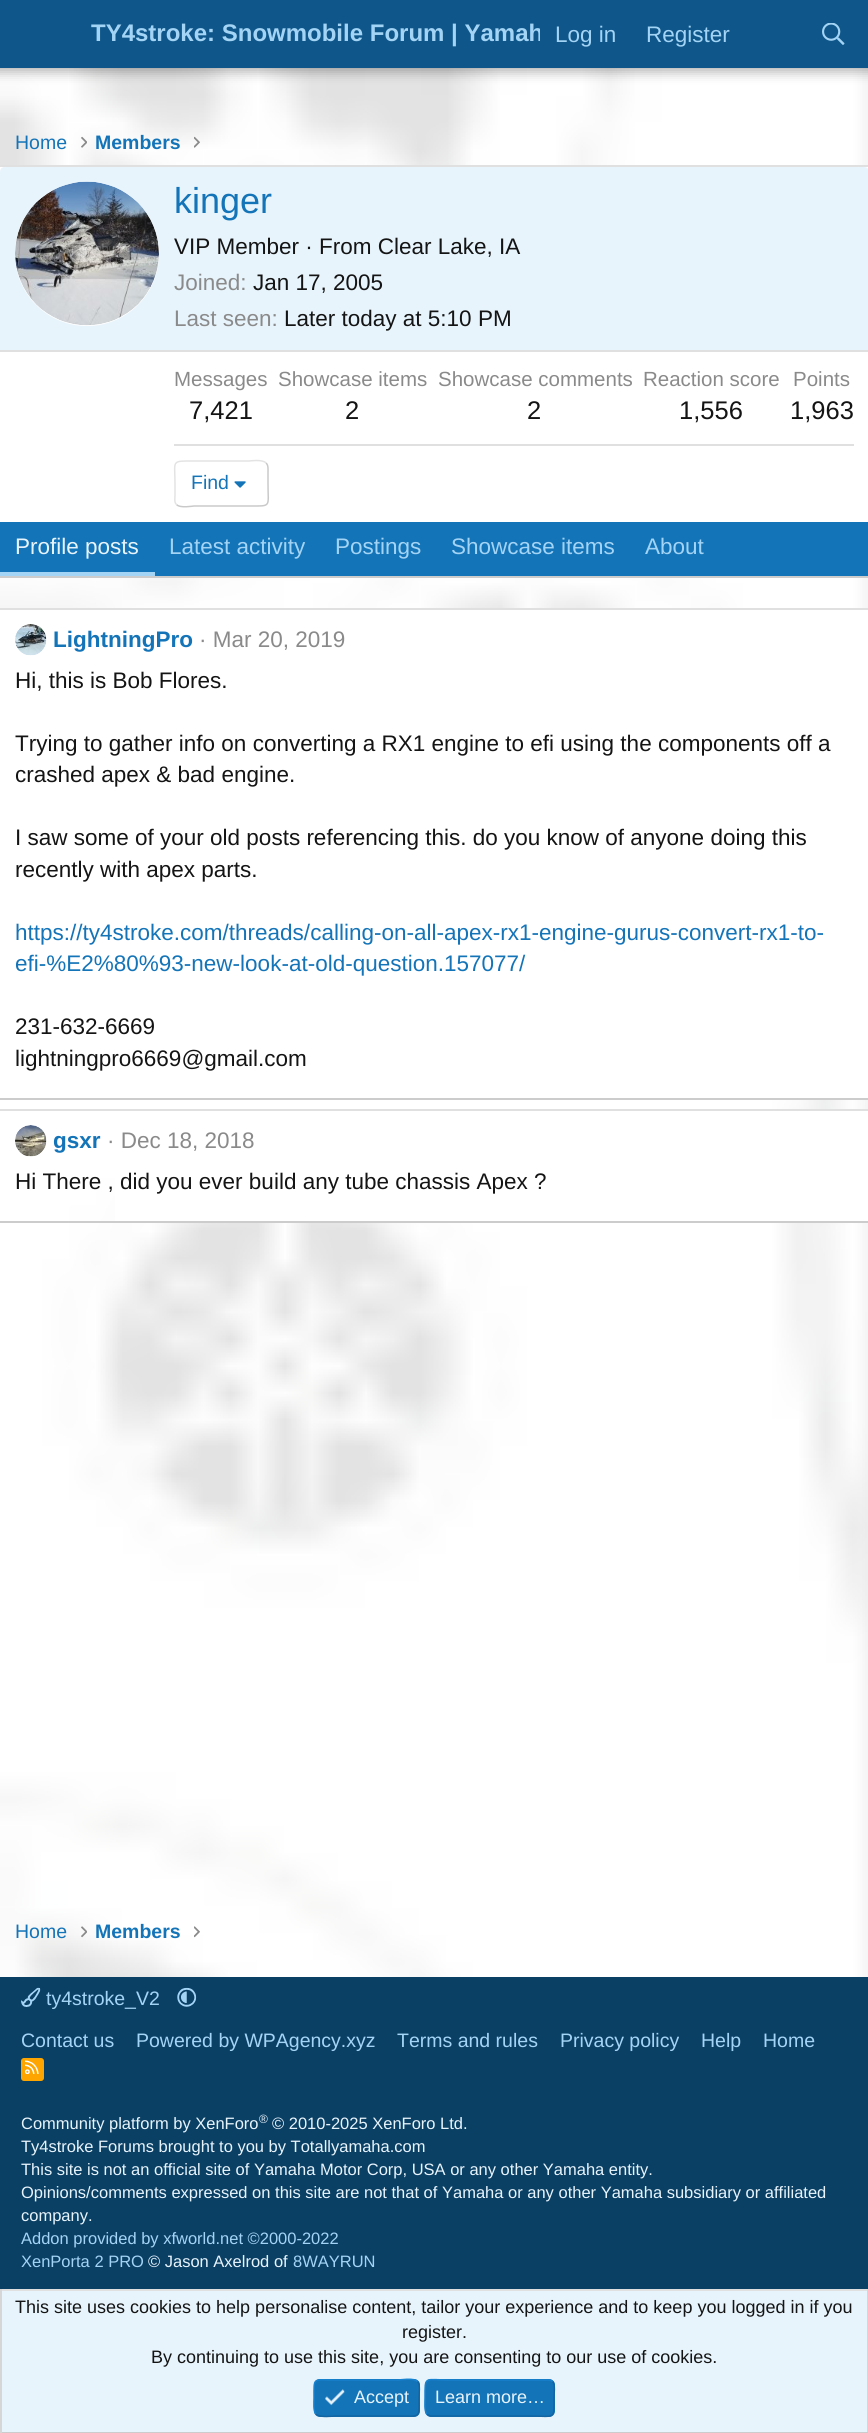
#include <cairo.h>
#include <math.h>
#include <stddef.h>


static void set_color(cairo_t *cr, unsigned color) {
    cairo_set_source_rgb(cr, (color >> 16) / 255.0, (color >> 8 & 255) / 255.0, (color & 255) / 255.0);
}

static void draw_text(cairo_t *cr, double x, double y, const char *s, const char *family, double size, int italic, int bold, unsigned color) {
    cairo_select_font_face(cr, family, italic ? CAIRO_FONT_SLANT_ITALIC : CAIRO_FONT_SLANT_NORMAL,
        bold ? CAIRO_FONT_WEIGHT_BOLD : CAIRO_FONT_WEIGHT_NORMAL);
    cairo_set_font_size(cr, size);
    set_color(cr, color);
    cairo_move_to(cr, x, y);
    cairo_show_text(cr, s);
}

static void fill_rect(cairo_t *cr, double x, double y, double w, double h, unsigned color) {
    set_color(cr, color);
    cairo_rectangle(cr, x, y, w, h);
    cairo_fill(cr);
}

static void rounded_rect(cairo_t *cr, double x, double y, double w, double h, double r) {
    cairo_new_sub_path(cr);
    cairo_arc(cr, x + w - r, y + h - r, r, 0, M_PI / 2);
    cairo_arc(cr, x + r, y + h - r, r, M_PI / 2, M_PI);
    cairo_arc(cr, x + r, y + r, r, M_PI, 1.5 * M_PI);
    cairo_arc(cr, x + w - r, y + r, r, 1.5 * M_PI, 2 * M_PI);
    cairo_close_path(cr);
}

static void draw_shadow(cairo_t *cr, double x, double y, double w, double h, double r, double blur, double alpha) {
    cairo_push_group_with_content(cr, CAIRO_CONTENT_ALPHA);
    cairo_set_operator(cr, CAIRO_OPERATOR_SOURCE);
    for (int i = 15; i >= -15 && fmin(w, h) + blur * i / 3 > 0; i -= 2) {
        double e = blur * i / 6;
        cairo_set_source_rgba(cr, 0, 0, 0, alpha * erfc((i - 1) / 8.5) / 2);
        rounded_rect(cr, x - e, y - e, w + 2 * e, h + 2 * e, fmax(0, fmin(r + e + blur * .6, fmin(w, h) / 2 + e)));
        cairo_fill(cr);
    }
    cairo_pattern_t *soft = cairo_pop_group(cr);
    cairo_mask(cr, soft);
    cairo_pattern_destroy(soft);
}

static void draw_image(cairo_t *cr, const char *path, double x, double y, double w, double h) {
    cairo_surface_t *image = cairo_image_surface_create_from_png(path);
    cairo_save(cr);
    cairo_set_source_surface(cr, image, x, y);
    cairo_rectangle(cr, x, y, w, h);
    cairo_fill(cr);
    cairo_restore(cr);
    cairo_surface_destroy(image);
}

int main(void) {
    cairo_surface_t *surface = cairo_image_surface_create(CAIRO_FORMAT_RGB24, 868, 2433);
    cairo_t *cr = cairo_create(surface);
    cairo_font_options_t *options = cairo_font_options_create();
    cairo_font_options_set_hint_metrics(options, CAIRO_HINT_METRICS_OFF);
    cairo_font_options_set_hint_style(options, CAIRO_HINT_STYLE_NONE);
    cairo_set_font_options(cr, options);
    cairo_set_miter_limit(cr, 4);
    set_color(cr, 0xEBEBEB);
    cairo_paint(cr);
    draw_image(cr, "assets/img2.png", 0, 68, 868, 1909);
    set_color(cr, 0x000000);
    draw_shadow(cr, -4, -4, 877, 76, 0, 6, 0.3);
    fill_rect(cr, 0, 0, 868, 68, 0x0F578A);
    cairo_save(cr);
    cairo_rectangle(cr, 84, 17, 456, 34);
    cairo_clip(cr);
    draw_text(cr, 91, 41, "TY4stroke: Snowmobile Forum | Yamah", "Liberation Sans", 24, 0, 1, 0xA3D4F5);
    cairo_restore(cr);
    draw_text(cr, 555, 42, "Log in", "Liberation Sans", 22.5, 0, 0, 0xA3D4F5);
    draw_text(cr, 646, 42, "Register", "Liberation Sans", 22.5, 0, 0, 0xA3D4F5);
    draw_image(cr, "assets/img1.png", 822, 23, 23, 22);
    draw_text(cr, 15, 149, "Home", "Liberation Sans", 19.5, 0, 0, 0x1474B8);
    draw_image(cr, "assets/img3.png", 81, 136, 6, 12);
    draw_text(cr, 95, 149, "Members", "Liberation Sans", 19.5, 0, 1, 0x1474B8);
    draw_image(cr, "assets/img4.png", 194, 136, 6, 12);
    fill_rect(cr, 0, 167, 868, 355, 0xFFFFFF);
    fill_rect(cr, 0, 165, 868, 2, 0xE0E0E0);
    fill_rect(cr, 0, 576, 868, 2, 0xCCCCCC);
    set_color(cr, 0xE8F4FC);
    cairo_new_path(cr);
    cairo_move_to(cr, 5, 167);
    cairo_line_to(cr, 864, 167);
    cairo_curve_to(cr, 867, 167, 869, 169, 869, 172);
    cairo_line_to(cr, 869, 351);
    cairo_line_to(cr, 0, 351);
    cairo_line_to(cr, 0, 172);
    cairo_curve_to(cr, 0, 169, 2, 167, 5, 167);
    cairo_close_path(cr);
    cairo_fill(cr);
    fill_rect(cr, 0, 350, 868, 2, 0xE0E0E0);
    set_color(cr, 0xFFFFFF);
    cairo_arc(cr, 87, 254, 72, 0, 2 * M_PI);
    cairo_fill(cr);
    draw_image(cr, "assets/img5.png", 15, 181, 144, 145);
    draw_text(cr, 174, 213, "kinger", "Liberation Sans", 36, 0, 0, 0x1474B8);
    draw_text(cr, 174, 254, "VIP Member · From Clear Lake, IA", "Liberation Sans", 22.5, 0, 0, 0x141414);
    draw_text(cr, 174, 290, "Joined:", "Liberation Sans", 22.5, 0, 0, 0x8A8A8A);
    draw_text(cr, 253, 290, "Jan 17, 2005", "Liberation Sans", 22.5, 0, 0, 0x141414);
    draw_text(cr, 174, 326, "Last seen:", "Liberation Sans", 22.5, 0, 0, 0x8A8A8A);
    draw_text(cr, 284, 326, "Later today at 5:10 PM", "Liberation Sans", 22.5, 0, 0, 0x141414);
    draw_text(cr, 174, 386, "Messages", "Liberation Sans", 20.5, 0, 0, 0x8A8A8A);
    draw_text(cr, 189, 419, "7,421", "Liberation Sans", 25.5, 0, 0, 0x141414);
    draw_text(cr, 278, 386, "Showcase items", "Liberation Sans", 20.5, 0, 0, 0x8A8A8A);
    draw_text(cr, 345, 419, "2", "Liberation Sans", 25.5, 0, 0, 0x141414);
    draw_text(cr, 438, 386, "Showcase comments", "Liberation Sans", 20.5, 0, 0, 0x8A8A8A);
    draw_text(cr, 527, 419, "2", "Liberation Sans", 25.5, 0, 0, 0x141414);
    draw_text(cr, 643, 386, "Reaction score", "Liberation Sans", 20.5, 0, 0, 0x8A8A8A);
    draw_text(cr, 679, 419, "1,556", "Liberation Sans", 25.5, 0, 0, 0x141414);
    draw_text(cr, 793, 386, "Points", "Liberation Sans", 20.5, 0, 0, 0x8A8A8A);
    draw_text(cr, 790, 419, "1,963", "Liberation Sans", 25.5, 0, 0, 0x141414);
    fill_rect(cr, 174, 444, 680, 2, 0xE0E0E0);
    cairo_new_path(cr);
    cairo_move_to(cr, 266, 463);
    cairo_curve_to(cr, 268.5, 465, 268, 469.5, 268, 472);
    cairo_line_to(cr, 268, 484);
    cairo_curve_to(cr, 268, 507.5, 272, 506, 249, 506);
    cairo_line_to(cr, 194, 506);
    cairo_curve_to(cr, 193, 506, 180, 508.5, 176.5, 504.5);
    set_color(cr, 0xC9C9C9);
    cairo_set_line_width(cr, 1.5);
    cairo_stroke(cr);
    cairo_new_path(cr);
    cairo_move_to(cr, 176.5, 504.5);
    cairo_curve_to(cr, 174, 502.5, 175, 498, 175, 495);
    cairo_line_to(cr, 175, 484);
    cairo_curve_to(cr, 175, 460, 170.5, 461, 194, 461);
    cairo_line_to(cr, 249, 461);
    cairo_curve_to(cr, 249.5, 461, 262.5, 459, 266, 463);
    set_color(cr, 0xE3E3E3);
    cairo_stroke(cr);
    draw_text(cr, 191, 489, "Find", "Liberation Sans", 19.5, 0, 0, 0x1474B8);
    draw_image(cr, "assets/img6.png", 234, 481, 12, 7);
    fill_rect(cr, 0, 522, 868, 54, 0x1474B8);
    fill_rect(cr, 0, 572, 155, 4, 0xA3D4F5);
    draw_text(cr, 15, 554, "Profile posts", "Liberation Sans", 22.5, 0, 0, 0xE8F4FC);
    draw_text(cr, 169, 554, "Latest activity", "Liberation Sans", 22.5, 0, 0, 0xA3D4F5);
    draw_text(cr, 335, 554, "Postings", "Liberation Sans", 22.5, 0, 0, 0xA3D4F5);
    draw_text(cr, 451, 554, "Showcase items", "Liberation Sans", 22.5, 0, 0, 0xA3D4F5);
    draw_text(cr, 645, 554, "About", "Liberation Sans", 22.5, 0, 0, 0xA3D4F5);
    fill_rect(cr, 0, 610, 868, 488, 0xFFFFFF);
    fill_rect(cr, 0, 608, 868, 2, 0xE0E0E0);
    fill_rect(cr, 0, 1098, 868, 2, 0xCCCCCC);
    draw_image(cr, "assets/img7.png", 15, 624, 32, 32);
    draw_text(cr, 53, 647, "LightningPro", "Liberation Sans", 22.5, 0, 1, 0x1474B8);
    draw_text(cr, 199, 647, "· Mar 20, 2019", "Liberation Sans", 22.5, 0, 0, 0x8A8A8A);
    draw_text(cr, 15, 688, "Hi, this is Bob Flores.", "Liberation Sans", 22.5, 0, 0, 0x141414);
    draw_text(cr, 15, 751, "Trying to gather info on converting a RX1 engine to efi using the components off a", "Liberation Sans", 22.5, 0, 0, 0x141414);
    draw_text(cr, 15, 782, "crashed apex & bad engine.", "Liberation Sans", 22.5, 0, 0, 0x141414);
    draw_text(cr, 15, 845, "I saw some of your old posts referencing this. do you know of anyone doing this", "Liberation Sans", 22.5, 0, 0, 0x141414);
    draw_text(cr, 15, 877, "recently with apex parts.", "Liberation Sans", 22.5, 0, 0, 0x141414);
    draw_text(cr, 15, 940, "https://ty4stroke.com/threads/calling-on-all-apex-rx1-engine-gurus-convert-rx1-to-", "Liberation Sans", 22.5, 0, 0, 0x1474B8);
    draw_text(cr, 15, 971, "efi-%E2%80%93-new-look-at-old-question.157077/", "Liberation Sans", 22.5, 0, 0, 0x1474B8);
    draw_text(cr, 15, 1034, "231-632-6669", "Liberation Sans", 22.5, 0, 0, 0x141414);
    draw_text(cr, 15, 1066, "lightningpro6669@gmail.com", "Liberation Sans", 22.5, 0, 0, 0x141414);
    fill_rect(cr, 115, 1111, 753, 110, 0xFFFFFF);
    fill_rect(cr, 0, 1109, 868, 2, 0xE0E0E0);
    fill_rect(cr, 0, 1221, 868, 2, 0xCCCCCC);
    draw_image(cr, "assets/img8.png", 15, 1125, 32, 32);
    draw_text(cr, 53, 1148, "gsxr", "Liberation Sans", 22.5, 0, 1, 0x1474B8);
    draw_text(cr, 107, 1148, "· Dec 18, 2018", "Liberation Sans", 22.5, 0, 0, 0x8A8A8A);
    draw_text(cr, 15, 1189, "Hi There , did you ever build any tube chassis Apex ?", "Liberation Sans", 22.5, 0, 0, 0x141414);
    draw_text(cr, 15, 1938, "Home", "Liberation Sans", 19.5, 0, 0, 0x1474B8);
    draw_image(cr, "assets/img9.png", 81, 1926, 6, 12);
    draw_text(cr, 95, 1938, "Members", "Liberation Sans", 19.5, 0, 1, 0x1474B8);
    draw_image(cr, "assets/img10.png", 194, 1926, 6, 12);
    fill_rect(cr, 0, 1977, 868, 312, 0x0B4065);
    draw_image(cr, "assets/img11.png", 21, 1987, 20, 20);
    draw_text(cr, 46, 2005, "ty4stroke_V2", "Liberation Sans", 19.5, 0, 0, 0xA3D4F5);
    draw_image(cr, "assets/img12.png", 177, 1987, 20, 20);
    draw_text(cr, 21, 2047, "Contact us", "Liberation Sans", 19.5, 0, 0, 0xA3D4F5);
    draw_text(cr, 136, 2047, "Powered by WPAgency.xyz", "Liberation Sans", 19.5, 0, 0, 0xA3D4F5);
    draw_text(cr, 397, 2047, "Terms and rules", "Liberation Sans", 19.5, 0, 0, 0xA3D4F5);
    draw_text(cr, 560, 2047, "Privacy policy", "Liberation Sans", 19.5, 0, 0, 0xA3D4F5);
    draw_text(cr, 701, 2047, "Help", "Liberation Sans", 19.5, 0, 0, 0xA3D4F5);
    draw_text(cr, 763, 2047, "Home", "Liberation Sans", 19.5, 0, 0, 0xA3D4F5);
    set_color(cr, 0xFFA500);
    rounded_rect(cr, 21, 2058, 23, 23, 3);
    cairo_fill(cr);
    draw_image(cr, "assets/img13.png", 25, 2060, 14, 14);
    draw_text(cr, 21, 2129, "Community platform by XenForo", "Liberation Sans", 16.5, 0, 0, 0xE8F4FC);
    draw_text(cr, 259, 2123, "®", "Liberation Sans", 12, 0, 0, 0xE8F4FC);
    draw_text(cr, 272, 2129, "© 2010-2025 XenForo Ltd.", "Liberation Sans", 16.5, 0, 0, 0xE8F4FC);
    draw_text(cr, 21, 2152, "Ty4stroke Forums brought to you by Totallyamaha.com", "Liberation Sans", 16.5, 0, 0, 0xE8F4FC);
    draw_text(cr, 21, 2175, "This site is not an official site of Yamaha Motor Corp, USA or any other Yamaha entity.", "Liberation Sans", 16.5, 0, 0, 0xE8F4FC);
    draw_text(cr, 21, 2198, "Opinions/comments expressed on this site are not that of Yamaha or any other Yamaha subsidiary or affiliated", "Liberation Sans", 16.5, 0, 0, 0xE8F4FC);
    draw_text(cr, 21, 2221, "company.", "Liberation Sans", 16.5, 0, 0, 0xE8F4FC);
    draw_text(cr, 21, 2244, "Addon provided by xfworld.net ©2000-2022", "Liberation Sans", 16.5, 0, 0, 0xA3D4F5);
    draw_text(cr, 21, 2267, "XenPorta 2 PRO", "Liberation Sans", 16.5, 0, 0, 0xA3D4F5);
    draw_text(cr, 148, 2267, "© Jason Axelrod of", "Liberation Sans", 16.5, 0, 0, 0xE8F4FC);
    draw_text(cr, 293, 2267, "8WAYRUN", "Liberation Sans", 16.5, 0, 0, 0xA3D4F5);
    fill_rect(cr, 2, 2291, 865, 141, 0xE8F4FC);
    fill_rect(cr, 0, 2289, 868, 2, 0xE0E0E0);
    fill_rect(cr, 867, 2289, 1, 144, 0xD6D6D6);
    fill_rect(cr, 0, 2432, 868, 1, 0xCCCCCC);
    fill_rect(cr, 0, 2289, 2, 144, 0xD6D6D6);
    draw_text(cr, 15, 2313, "This site uses cookies to help personalise content, tailor your experience and to keep you logged in if you", "Liberation Sans", 18, 0, 0, 0x141414);
    draw_text(cr, 402, 2338, "register.", "Liberation Sans", 18, 0, 0, 0x141414);
    draw_text(cr, 151, 2363, "By continuing to use this site, you are consenting to our use of cookies.", "Liberation Sans", 18, 0, 0, 0x141414);
    set_color(cr, 0x1474B8);
    rounded_rect(cr, 314, 2379, 106, 38, 6);
    cairo_fill(cr);
    cairo_new_path(cr);
    cairo_move_to(cr, 417.5, 2381.5);
    cairo_curve_to(cr, 420.5, 2384, 419, 2394, 419, 2398);
    cairo_curve_to(cr, 419, 2419, 421, 2416, 398, 2416);
    cairo_line_to(cr, 335, 2416);
    cairo_curve_to(cr, 333.5, 2416, 319.5, 2418, 316, 2414);
    set_color(cr, 0x1265A1);
    cairo_stroke(cr);
    cairo_new_path(cr);
    cairo_move_to(cr, 316, 2414);
    cairo_curve_to(cr, 313, 2411.5, 314, 2401.5, 314, 2398);
    cairo_curve_to(cr, 314, 2376.5, 312.5, 2380, 335, 2380);
    cairo_line_to(cr, 398, 2380);
    cairo_curve_to(cr, 400, 2380, 414, 2377.5, 417.5, 2381.5);
    set_color(cr, 0x1782CF);
    cairo_stroke(cr);
    draw_image(cr, "assets/img14.png", 325, 2389, 20, 17);
    draw_text(cr, 354, 2403, "Accept", "Liberation Sans", 18, 0, 0, 0xE8F4FC);
    set_color(cr, 0x1474B8);
    rounded_rect(cr, 425, 2379, 130, 38, 6);
    cairo_fill(cr);
    cairo_new_path(cr);
    cairo_move_to(cr, 552.5, 2381.5);
    cairo_curve_to(cr, 555.5, 2384, 554, 2394, 554, 2398);
    cairo_curve_to(cr, 554, 2420.5, 555.5, 2416, 529, 2416);
    cairo_line_to(cr, 430.5, 2416);
    cairo_curve_to(cr, 429, 2415.5, 428, 2415, 427, 2414);
    set_color(cr, 0x1265A1);
    cairo_stroke(cr);
    cairo_new_path(cr);
    cairo_move_to(cr, 427, 2414);
    cairo_curve_to(cr, 424, 2411.5, 425, 2401.5, 425, 2398);
    cairo_curve_to(cr, 425, 2375, 424, 2380, 450, 2380);
    cairo_line_to(cr, 549, 2380);
    cairo_curve_to(cr, 550.5, 2380, 551.5, 2380.5, 552.5, 2381.5);
    set_color(cr, 0x1782CF);
    cairo_stroke(cr);
    draw_text(cr, 435, 2403, "Learn more…", "Liberation Sans", 18, 0, 0, 0xE8F4FC);
    cairo_surface_write_to_png(surface, "output.png");
    cairo_font_options_destroy(options);
    cairo_destroy(cr);
    cairo_surface_destroy(surface);
    return 0;
}
